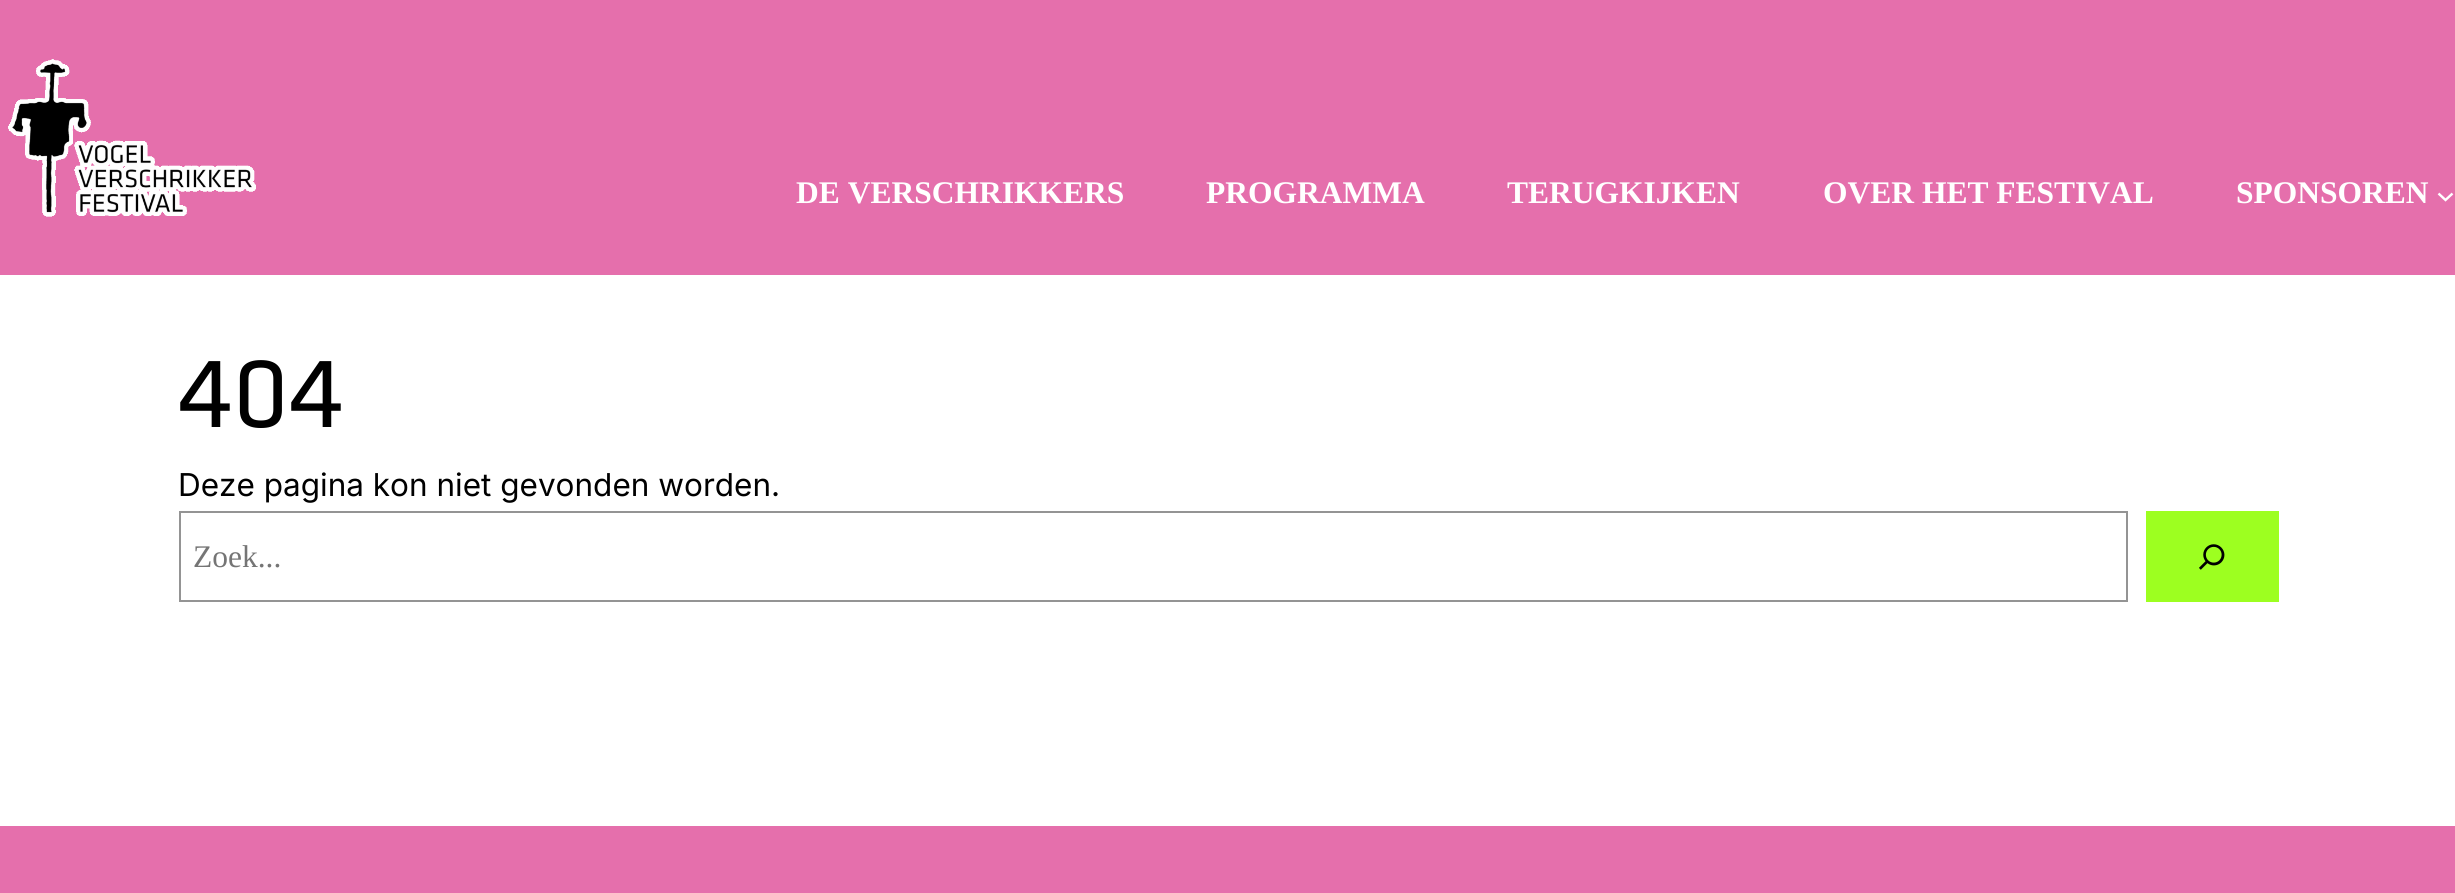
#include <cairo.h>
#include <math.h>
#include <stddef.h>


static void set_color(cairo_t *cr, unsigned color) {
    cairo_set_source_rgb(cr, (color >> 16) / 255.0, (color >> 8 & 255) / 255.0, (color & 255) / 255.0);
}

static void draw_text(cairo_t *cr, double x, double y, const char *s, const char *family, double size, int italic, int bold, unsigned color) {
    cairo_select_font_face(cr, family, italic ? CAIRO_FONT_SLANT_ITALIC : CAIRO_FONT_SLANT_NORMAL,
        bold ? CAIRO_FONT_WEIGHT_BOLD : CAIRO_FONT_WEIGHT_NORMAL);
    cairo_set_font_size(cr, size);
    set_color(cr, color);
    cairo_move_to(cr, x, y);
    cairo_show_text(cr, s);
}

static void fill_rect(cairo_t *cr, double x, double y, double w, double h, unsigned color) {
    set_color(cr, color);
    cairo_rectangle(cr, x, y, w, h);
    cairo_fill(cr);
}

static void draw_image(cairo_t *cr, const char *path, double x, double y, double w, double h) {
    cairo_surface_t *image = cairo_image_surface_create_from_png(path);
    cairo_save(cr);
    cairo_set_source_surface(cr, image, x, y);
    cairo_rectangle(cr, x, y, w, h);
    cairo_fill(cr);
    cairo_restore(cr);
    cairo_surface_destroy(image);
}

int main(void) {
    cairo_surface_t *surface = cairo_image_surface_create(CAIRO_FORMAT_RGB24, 2455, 893);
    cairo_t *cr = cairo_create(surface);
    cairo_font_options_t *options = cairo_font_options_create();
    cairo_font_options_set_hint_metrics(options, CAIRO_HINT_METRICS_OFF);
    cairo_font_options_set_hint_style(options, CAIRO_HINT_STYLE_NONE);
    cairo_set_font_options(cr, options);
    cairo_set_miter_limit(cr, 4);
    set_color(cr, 0xFFFFFF);
    cairo_paint(cr);
    fill_rect(cr, 0, 0, 2455, 275, 0xE56FAC);
    draw_image(cr, "assets/img1.png", 8, 59, 248, 158);
    draw_text(cr, 796, 203, "DE VERSCHRIKKERS", "Liberation Serif", 31.5, 0, 1, 0xFFFFFF);
    draw_text(cr, 1206, 203, "PROGRAMMA", "Liberation Serif", 31.5, 0, 1, 0xFFFFFF);
    draw_text(cr, 1507, 203, "TERUGKIJKEN", "Liberation Serif", 31.5, 0, 1, 0xFFFFFF);
    draw_text(cr, 1823, 203, "OVER HET FESTIVAL", "Liberation Serif", 31.5, 0, 1, 0xFFFFFF);
    draw_text(cr, 2236, 203, "SPONSOREN", "Liberation Serif", 31.5, 0, 1, 0xFFFFFF);
    cairo_new_path(cr);
    cairo_move_to(cr, 2438.5, 193.5);
    cairo_line_to(cr, 2445.5, 200);
    cairo_line_to(cr, 2452.5, 193.5);
    cairo_set_line_width(cr, 2.4);
    cairo_stroke(cr);
    draw_text(cr, 178, 427, "404", "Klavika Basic", 102, 0, 0, 0x000000);
    draw_text(cr, 178, 496, "Deze pagina kon niet gevonden worden.", "Inter", 31.5, 0, 0, 0x000000);
    cairo_rectangle(cr, 180, 512, 1947, 89);
    set_color(cr, 0x949494);
    cairo_set_line_width(cr, 2);
    cairo_stroke(cr);
    draw_text(cr, 193, 567, "Zoek...", "Liberation Serif", 31.5, 0, 0, 0x757575);
    fill_rect(cr, 2146, 511, 133, 91, 0x9DFF20);
    draw_image(cr, "assets/img2.png", 2199, 544, 26, 26);
    fill_rect(cr, 0, 826, 2455, 67, 0xE56FAC);
    cairo_surface_write_to_png(surface, "output.png");
    cairo_font_options_destroy(options);
    cairo_destroy(cr);
    cairo_surface_destroy(surface);
    return 0;
}
